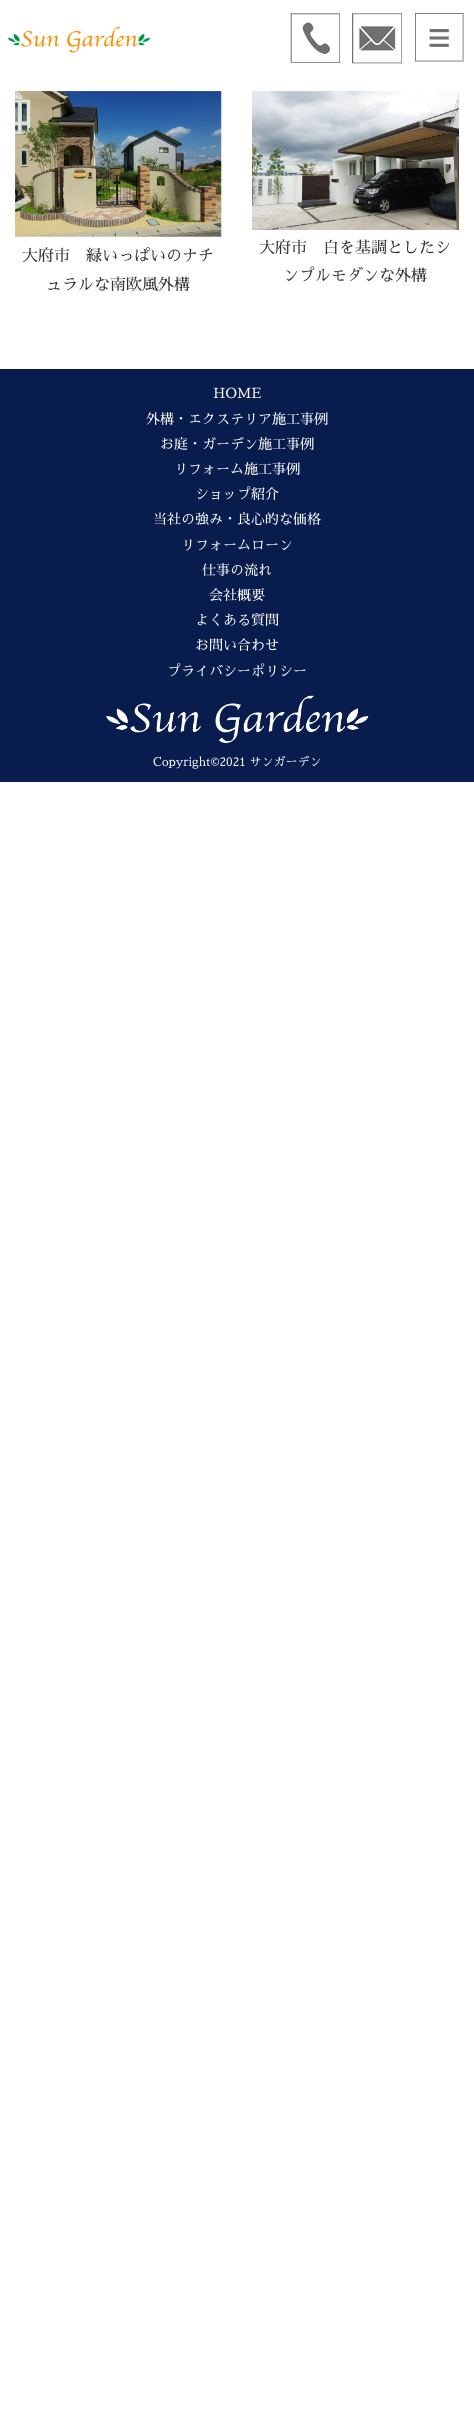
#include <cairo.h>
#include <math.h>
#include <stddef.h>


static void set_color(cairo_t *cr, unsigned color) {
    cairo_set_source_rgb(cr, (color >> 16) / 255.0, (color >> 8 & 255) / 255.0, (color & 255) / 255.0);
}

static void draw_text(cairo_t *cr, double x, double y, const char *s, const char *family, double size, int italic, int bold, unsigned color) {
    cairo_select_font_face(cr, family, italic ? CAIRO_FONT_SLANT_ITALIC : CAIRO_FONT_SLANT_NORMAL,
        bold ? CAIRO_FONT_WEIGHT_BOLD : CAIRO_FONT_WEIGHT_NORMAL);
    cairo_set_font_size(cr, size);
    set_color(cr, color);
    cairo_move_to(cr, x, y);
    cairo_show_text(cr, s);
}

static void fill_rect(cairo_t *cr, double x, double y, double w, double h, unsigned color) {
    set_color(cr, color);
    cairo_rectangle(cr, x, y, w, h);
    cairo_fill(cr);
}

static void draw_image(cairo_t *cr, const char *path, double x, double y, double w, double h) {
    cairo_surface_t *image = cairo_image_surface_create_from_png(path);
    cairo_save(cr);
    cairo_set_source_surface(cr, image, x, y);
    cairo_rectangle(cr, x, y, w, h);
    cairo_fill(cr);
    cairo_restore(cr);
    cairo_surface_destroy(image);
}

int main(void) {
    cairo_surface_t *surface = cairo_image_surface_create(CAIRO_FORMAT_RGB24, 474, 2410);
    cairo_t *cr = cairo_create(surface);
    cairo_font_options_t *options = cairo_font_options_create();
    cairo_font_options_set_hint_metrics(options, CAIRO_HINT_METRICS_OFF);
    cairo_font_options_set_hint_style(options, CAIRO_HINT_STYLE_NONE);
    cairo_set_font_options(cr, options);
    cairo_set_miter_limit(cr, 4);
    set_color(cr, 0xFFFFFF);
    cairo_paint(cr);
    draw_image(cr, "assets/img1.png", 8, 26, 142, 27);
    draw_image(cr, "assets/img2.png", 290, 13, 50, 50);
    draw_image(cr, "assets/img3.png", 352, 13, 50, 51);
    draw_image(cr, "assets/img4.png", 415, 13, 49, 49);
    draw_image(cr, "assets/img5.png", 15, 91, 207, 147);
    draw_text(cr, 22, 261, "大府市　緑いっぱいのナチ", "Sawarabi Mincho", 16, 0, 0, 0x333333);
    draw_text(cr, 46, 290, "ュラルな南欧風外構", "Sawarabi Mincho", 16, 0, 0, 0x333333);
    draw_image(cr, "assets/img6.png", 252, 91, 207, 139);
    draw_text(cr, 259, 253, "大府市　白を基調としたシ", "Sawarabi Mincho", 16, 0, 0, 0x333333);
    draw_text(cr, 283, 281, "ンプルモダンな外構", "Sawarabi Mincho", 16, 0, 0, 0x333333);
    fill_rect(cr, 0, 369, 474, 413, 0x091C4E);
    draw_text(cr, 213, 398, "HOME", "Sawarabi Mincho", 14, 0, 0, 0xFFFFFF);
    draw_text(cr, 146, 424, "外構・エクステリア施工事例", "Sawarabi Mincho", 14, 0, 0, 0xFFFFFF);
    draw_text(cr, 160, 449, "お庭・ガーデン施工事例", "Sawarabi Mincho", 14, 0, 0, 0xFFFFFF);
    draw_text(cr, 174, 474, "リフォーム施工事例", "Sawarabi Mincho", 14, 0, 0, 0xFFFFFF);
    draw_text(cr, 195, 499, "ショップ紹介", "Sawarabi Mincho", 14, 0, 0, 0xFFFFFF);
    draw_text(cr, 153, 524, "当社の強み・良心的な価格", "Sawarabi Mincho", 14, 0, 0, 0xFFFFFF);
    draw_text(cr, 181, 550, "リフォームローン", "Sawarabi Mincho", 14, 0, 0, 0xFFFFFF);
    draw_text(cr, 202, 575, "仕事の流れ", "Sawarabi Mincho", 14, 0, 0, 0xFFFFFF);
    draw_text(cr, 209, 600, "会社概要", "Sawarabi Mincho", 14, 0, 0, 0xFFFFFF);
    draw_text(cr, 195, 625, "よくある質問", "Sawarabi Mincho", 14, 0, 0, 0xFFFFFF);
    draw_text(cr, 195, 650, "お問い合わせ", "Sawarabi Mincho", 14, 0, 0, 0xFFFFFF);
    draw_text(cr, 167, 676, "プライバシーポリシー", "Sawarabi Mincho", 14, 0, 0, 0xFFFFFF);
    draw_image(cr, "assets/img7.png", 106, 695, 263, 48);
    draw_text(cr, 153, 766, "Copyright©2021 サンガーデン", "Sawarabi Mincho", 12, 0, 0, 0xFFFFFF);
    cairo_surface_write_to_png(surface, "output.png");
    cairo_font_options_destroy(options);
    cairo_destroy(cr);
    cairo_surface_destroy(surface);
    return 0;
}
